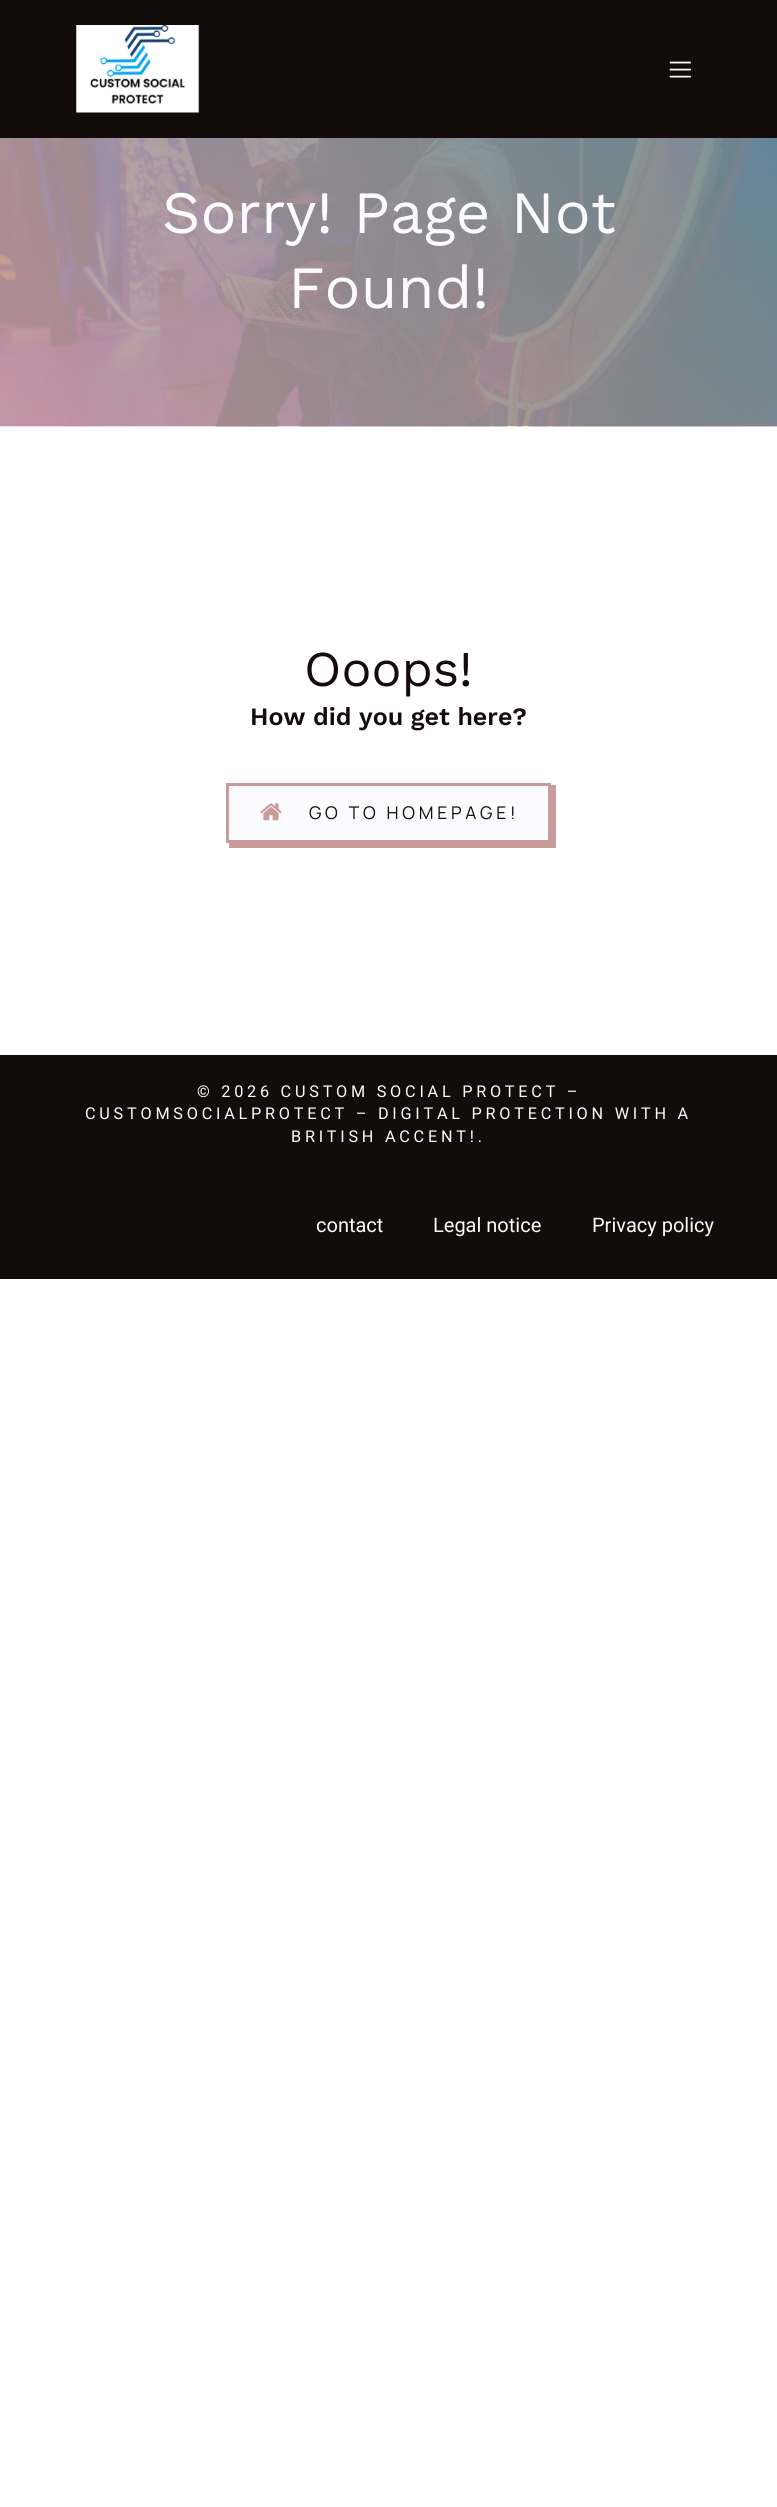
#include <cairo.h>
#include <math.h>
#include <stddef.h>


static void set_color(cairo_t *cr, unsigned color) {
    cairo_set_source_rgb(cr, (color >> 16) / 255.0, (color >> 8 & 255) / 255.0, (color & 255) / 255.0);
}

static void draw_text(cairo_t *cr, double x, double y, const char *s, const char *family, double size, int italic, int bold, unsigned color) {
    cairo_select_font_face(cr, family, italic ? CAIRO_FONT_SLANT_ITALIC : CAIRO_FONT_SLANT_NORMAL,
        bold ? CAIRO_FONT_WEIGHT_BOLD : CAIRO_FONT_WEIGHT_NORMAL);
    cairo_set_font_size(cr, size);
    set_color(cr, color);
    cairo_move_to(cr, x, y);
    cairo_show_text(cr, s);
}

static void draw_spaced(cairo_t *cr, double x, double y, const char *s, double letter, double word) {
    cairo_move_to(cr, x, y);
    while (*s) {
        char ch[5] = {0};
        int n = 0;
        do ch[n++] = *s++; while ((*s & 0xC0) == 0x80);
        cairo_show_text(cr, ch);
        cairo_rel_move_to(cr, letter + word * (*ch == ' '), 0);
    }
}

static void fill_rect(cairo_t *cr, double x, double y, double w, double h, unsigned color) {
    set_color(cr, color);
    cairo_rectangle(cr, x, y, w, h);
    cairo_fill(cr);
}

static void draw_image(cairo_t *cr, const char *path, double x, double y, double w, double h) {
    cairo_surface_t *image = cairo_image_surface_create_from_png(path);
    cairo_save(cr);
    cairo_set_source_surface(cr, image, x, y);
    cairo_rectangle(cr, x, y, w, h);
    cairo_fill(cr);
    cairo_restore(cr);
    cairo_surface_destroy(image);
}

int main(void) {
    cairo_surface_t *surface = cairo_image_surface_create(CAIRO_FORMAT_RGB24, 777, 2507);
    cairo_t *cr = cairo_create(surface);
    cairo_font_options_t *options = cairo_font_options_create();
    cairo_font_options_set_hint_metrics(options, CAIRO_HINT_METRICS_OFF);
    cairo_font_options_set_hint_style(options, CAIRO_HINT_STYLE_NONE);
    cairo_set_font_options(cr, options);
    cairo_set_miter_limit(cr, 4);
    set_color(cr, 0xFFFFFF);
    cairo_paint(cr);
    fill_rect(cr, 0, 0, 777, 138, 0x140B0B);
    draw_image(cr, "assets/img1.png", 76, 25, 124, 88);
    draw_image(cr, "assets/img2.png", 669, 61, 22, 17);
    draw_image(cr, "assets/img3.png", 0, 138, 777, 289);
    draw_text(cr, 162, 233, "Sorry! Page Not", "Work Sans", 60, 0, 0, 0xFBFBFE);
    draw_text(cr, 288, 308, "Found!", "Work Sans", 60, 0, 0, 0xFBFBFE);
    draw_text(cr, 304, 686, "Ooops!", "Work Sans", 50, 0, 0, 0x140B0B);
    draw_text(cr, 250, 725, "How did you get here?", "Work Sans SemiBold", 25, 0, 0, 0x140B0B);
    set_color(cr, 0xC99C9C);
    cairo_new_path(cr);
    cairo_move_to(cr, 229, 842);
    cairo_line_to(cr, 229, 848);
    cairo_line_to(cr, 556, 848);
    cairo_line_to(cr, 556, 785);
    cairo_line_to(cr, 551, 785);
    cairo_line_to(cr, 551, 842);
    cairo_close_path(cr);
    cairo_fill(cr);
    set_color(cr, 0xFBFBFE);
    cairo_rectangle(cr, 227.5, 784.5, 322, 57);
    cairo_fill_preserve(cr);
    set_color(cr, 0xC99C9C);
    cairo_set_line_width(cr, 3);
    cairo_stroke(cr);
    draw_image(cr, "assets/img4.png", 260, 803, 22, 18);
    cairo_select_font_face(cr, "Manrope", CAIRO_FONT_SLANT_NORMAL, CAIRO_FONT_WEIGHT_NORMAL);
    cairo_set_font_size(cr, 17.5);
    set_color(cr, 0x140B0B);
    draw_spaced(cr, 309, 819, "GO TO HOMEPAGE!", 3.75, 0);
    fill_rect(cr, 0, 1055, 777, 224, 0x140B0B);
    cairo_select_font_face(cr, "Roboto", CAIRO_FONT_SLANT_NORMAL, CAIRO_FONT_WEIGHT_NORMAL);
    cairo_set_font_size(cr, 16.25);
    set_color(cr, 0xFBFBFE);
    draw_spaced(cr, 197, 1097, "© 2026 CUSTOM SOCIAL PROTECT –", 3.75, 0);
    draw_spaced(cr, 85, 1119, "CUSTOMSOCIALPROTECT – DIGITAL PROTECTION WITH A", 3.75, 0);
    draw_spaced(cr, 291, 1142, "BRITISH ACCENT!.", 3.75, 0);
    draw_text(cr, 316, 1232, "contact", "Roboto", 20, 0, 0, 0xFBFBFE);
    draw_text(cr, 433, 1232, "Legal notice", "Roboto", 20, 0, 0, 0xFBFBFE);
    draw_text(cr, 592, 1232, "Privacy policy", "Roboto", 20, 0, 0, 0xFBFBFE);
    cairo_surface_write_to_png(surface, "output.png");
    cairo_font_options_destroy(options);
    cairo_destroy(cr);
    cairo_surface_destroy(surface);
    return 0;
}
